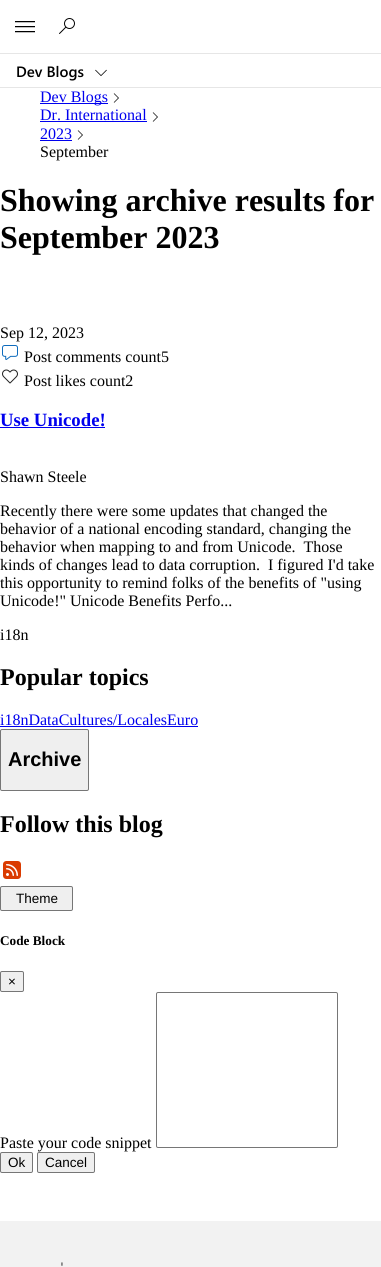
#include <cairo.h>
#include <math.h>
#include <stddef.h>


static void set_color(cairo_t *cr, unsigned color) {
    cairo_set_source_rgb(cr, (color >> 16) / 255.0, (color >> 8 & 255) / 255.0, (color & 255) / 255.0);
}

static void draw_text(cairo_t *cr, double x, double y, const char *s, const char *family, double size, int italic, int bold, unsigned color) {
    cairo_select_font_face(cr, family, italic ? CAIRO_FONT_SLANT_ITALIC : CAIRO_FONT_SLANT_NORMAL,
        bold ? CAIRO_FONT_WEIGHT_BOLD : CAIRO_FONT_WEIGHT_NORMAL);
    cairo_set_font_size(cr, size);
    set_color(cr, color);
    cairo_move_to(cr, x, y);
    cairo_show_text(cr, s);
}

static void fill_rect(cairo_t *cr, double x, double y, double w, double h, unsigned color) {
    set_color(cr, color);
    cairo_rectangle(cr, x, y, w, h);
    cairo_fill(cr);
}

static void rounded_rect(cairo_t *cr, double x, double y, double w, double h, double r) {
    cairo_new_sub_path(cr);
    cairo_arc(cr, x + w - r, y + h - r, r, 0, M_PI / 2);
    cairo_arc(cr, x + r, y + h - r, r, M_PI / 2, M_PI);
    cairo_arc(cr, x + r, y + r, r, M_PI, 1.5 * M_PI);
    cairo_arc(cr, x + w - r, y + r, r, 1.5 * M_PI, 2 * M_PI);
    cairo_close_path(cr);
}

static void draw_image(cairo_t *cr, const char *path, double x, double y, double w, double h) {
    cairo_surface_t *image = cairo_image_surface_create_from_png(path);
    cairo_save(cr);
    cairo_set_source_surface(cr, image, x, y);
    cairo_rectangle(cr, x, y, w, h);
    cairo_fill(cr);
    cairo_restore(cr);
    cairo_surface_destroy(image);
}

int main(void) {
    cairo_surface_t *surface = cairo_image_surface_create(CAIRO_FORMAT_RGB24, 381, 1267);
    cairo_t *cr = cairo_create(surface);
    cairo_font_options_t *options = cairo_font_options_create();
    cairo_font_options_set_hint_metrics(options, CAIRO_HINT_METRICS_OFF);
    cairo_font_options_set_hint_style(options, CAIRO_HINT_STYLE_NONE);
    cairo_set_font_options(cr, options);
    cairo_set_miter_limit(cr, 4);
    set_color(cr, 0xFFFFFF);
    cairo_paint(cr);
    fill_rect(cr, 0, 53, 381, 1, 0xE6E6E6);
    draw_image(cr, "assets/img1.png", 15, 21, 20, 12);
    draw_image(cr, "assets/img2.png", 59, 18, 16, 16);
    fill_rect(cr, 0, 87, 381, 1, 0xE6E6E6);
    draw_text(cr, 16, 77, "Dev Blogs", "Segoe UI SemiBold", 15, 0, 0, 0x000000);
    draw_image(cr, "assets/img3.png", 95, 69, 12, 7);
    fill_rect(cr, 40, 103, 68, 1, 0x0000EE);
    draw_text(cr, 40, 102, "Dev Blogs", "Liberation Serif", 16, 0, 0, 0x0000EE);
    draw_text(cr, 40, 120, "Dr. International", "Liberation Serif", 16, 0, 0, 0x0000EE);
    fill_rect(cr, 40, 121, 107, 1, 0x0000EE);
    cairo_new_path(cr);
    cairo_move_to(cr, 114, 93.5);
    cairo_line_to(cr, 118.5, 98);
    cairo_line_to(cr, 114, 102.5);
    cairo_move_to(cr, 153, 112.5);
    cairo_line_to(cr, 157.5, 117);
    cairo_line_to(cr, 153, 121.5);
    set_color(cr, 0x000000);
    cairo_set_line_width(cr, 0.7);
    cairo_stroke(cr);
    draw_text(cr, 40, 139, "2023", "Liberation Serif", 16, 0, 0, 0x0000EE);
    fill_rect(cr, 40, 140, 32, 1, 0x0000EE);
    cairo_new_path(cr);
    cairo_move_to(cr, 78, 130.5);
    cairo_line_to(cr, 82.5, 135);
    cairo_line_to(cr, 78, 139.5);
    set_color(cr, 0x000000);
    cairo_stroke(cr);
    draw_text(cr, 40, 157, "September", "Liberation Serif", 16, 0, 0, 0x000000);
    draw_text(cr, 0, 211, "Showing archive results for", "Liberation Serif", 32, 0, 1, 0x000000);
    draw_text(cr, 0, 248, "September 2023", "Liberation Serif", 32, 0, 1, 0x000000);
    draw_text(cr, 0, 338, "Sep 12, 2023", "Liberation Serif", 16, 0, 0, 0x000000);
    draw_image(cr, "assets/img4.png", 2, 345, 16, 15);
    draw_text(cr, 24, 362, "Post comments count5", "Liberation Serif", 16, 0, 0, 0x000000);
    draw_image(cr, "assets/img5.png", 2, 369, 16, 15);
    draw_text(cr, 24, 386, "Post likes count2", "Liberation Serif", 16, 0, 0, 0x000000);
    draw_text(cr, 0, 426, "Use Unicode!", "Liberation Serif", 18.75, 0, 1, 0x0000EE);
    fill_rect(cr, 0, 427, 105, 1, 0x0000EE);
    draw_text(cr, 0, 482, "Shawn Steele", "Liberation Serif", 16, 0, 0, 0x000000);
    draw_text(cr, 0, 516, "Recently there were some updates that changed the", "Liberation Serif", 16, 0, 0, 0x000000);
    draw_text(cr, 0, 534, "behavior of a national encoding standard, changing the", "Liberation Serif", 16, 0, 0, 0x000000);
    draw_text(cr, 0, 552, "behavior when mapping to and from Unicode.  Those", "Liberation Serif", 16, 0, 0, 0x000000);
    draw_text(cr, 0, 570, "kinds of changes lead to data corruption.  I figured I'd take", "Liberation Serif", 16, 0, 0, 0x000000);
    draw_text(cr, 0, 588, "this opportunity to remind folks of the benefits of \"using", "Liberation Serif", 16, 0, 0, 0x000000);
    draw_text(cr, 0, 606, "Unicode!\" Unicode Benefits Perfo...", "Liberation Serif", 16, 0, 0, 0x000000);
    draw_text(cr, 0, 640, "i18n", "Liberation Serif", 16, 0, 0, 0x000000);
    draw_text(cr, 0, 685, "Popular topics", "Liberation Serif", 24, 0, 1, 0x000000);
    draw_text(cr, 0, 725, "i18nDataCultures/LocalesEuro", "Liberation Serif", 16, 0, 0, 0x0000EE);
    fill_rect(cr, 0, 726, 198, 1, 0x0000EE);
    set_color(cr, 0xEFEFEF);
    rounded_rect(cr, 0.5, 729.5, 88, 61, 1.5);
    cairo_fill_preserve(cr);
    set_color(cr, 0x767676);
    cairo_set_line_width(cr, 1);
    cairo_stroke(cr);
    draw_text(cr, 8, 766, "Archive", "Liberation Sans", 20, 0, 1, 0x000000);
    draw_text(cr, 0, 832, "Follow this blog", "Liberation Serif", 24, 0, 1, 0x000000);
    draw_image(cr, "assets/img6.png", 3, 861, 18, 18);
    set_color(cr, 0xEFEFEF);
    rounded_rect(cr, 0.5, 886.5, 72, 24, 1.5);
    cairo_fill_preserve(cr);
    set_color(cr, 0x767676);
    cairo_stroke(cr);
    draw_text(cr, 16, 903, "Theme", "Liberation Sans", 13.5, 0, 0, 0x000000);
    draw_text(cr, 0, 945, "Code Block", "Liberation Serif", 13.25, 0, 1, 0x000000);
    set_color(cr, 0xEFEFEF);
    rounded_rect(cr, 0.5, 971.5, 23, 20, 1.5);
    cairo_fill_preserve(cr);
    set_color(cr, 0x767676);
    cairo_stroke(cr);
    draw_text(cr, 8, 986, "×", "Liberation Sans", 13.5, 0, 0, 0x000000);
    draw_text(cr, 0, 1148, "Paste your code snippet", "Liberation Serif", 16, 0, 0, 0x000000);
    rounded_rect(cr, 156.5, 992.5, 181, 155, 1.5);
    set_color(cr, 0x767676);
    cairo_stroke(cr);
    set_color(cr, 0xEFEFEF);
    rounded_rect(cr, 0.5, 1152.5, 32, 20, 1.5);
    cairo_fill_preserve(cr);
    set_color(cr, 0x767676);
    cairo_stroke(cr);
    draw_text(cr, 8, 1167, "Ok", "Liberation Sans", 13.5, 0, 0, 0x000000);
    set_color(cr, 0xEFEFEF);
    rounded_rect(cr, 37.5, 1152.5, 57, 20, 1.5);
    cairo_fill_preserve(cr);
    set_color(cr, 0x767676);
    cairo_stroke(cr);
    draw_text(cr, 45, 1167, "Cancel", "Liberation Sans", 13.5, 0, 0, 0x000000);
    fill_rect(cr, 0, 1221, 381, 46, 0xF2F2F2);
    draw_text(cr, 60, 1273, "'", "Segoe UI SemiBold", 15, 0, 0, 0x616161);
    cairo_surface_write_to_png(surface, "output.png");
    cairo_font_options_destroy(options);
    cairo_destroy(cr);
    cairo_surface_destroy(surface);
    return 0;
}
